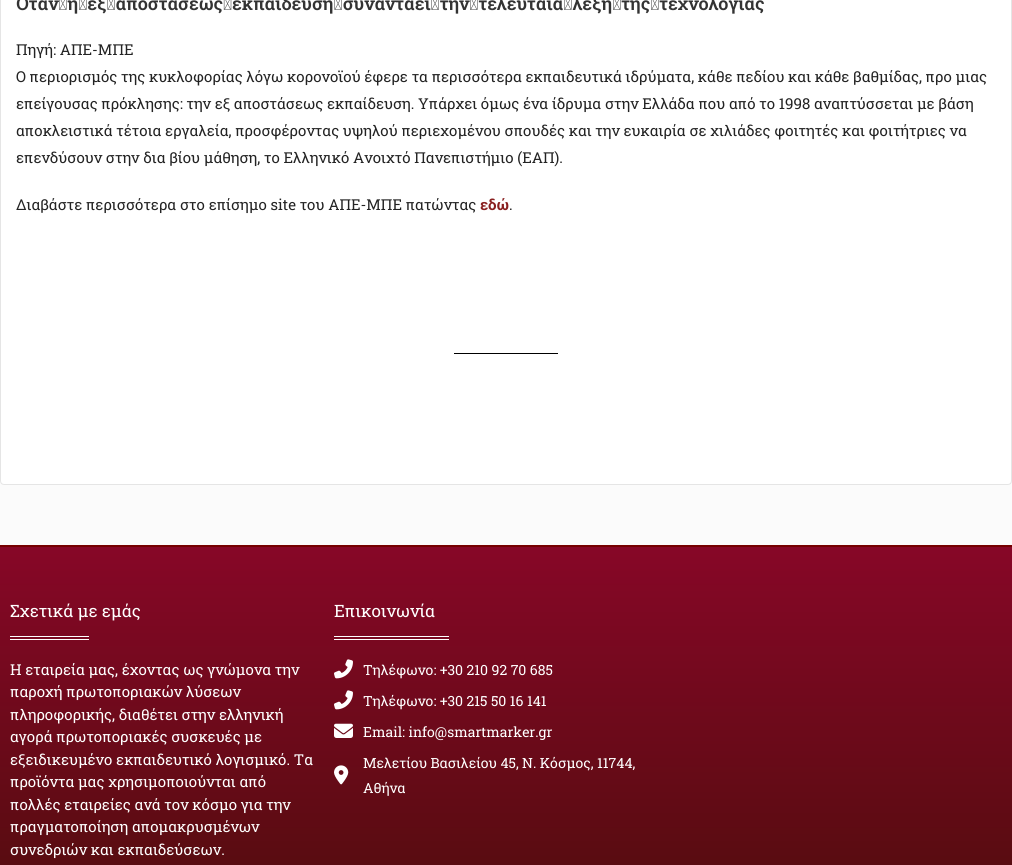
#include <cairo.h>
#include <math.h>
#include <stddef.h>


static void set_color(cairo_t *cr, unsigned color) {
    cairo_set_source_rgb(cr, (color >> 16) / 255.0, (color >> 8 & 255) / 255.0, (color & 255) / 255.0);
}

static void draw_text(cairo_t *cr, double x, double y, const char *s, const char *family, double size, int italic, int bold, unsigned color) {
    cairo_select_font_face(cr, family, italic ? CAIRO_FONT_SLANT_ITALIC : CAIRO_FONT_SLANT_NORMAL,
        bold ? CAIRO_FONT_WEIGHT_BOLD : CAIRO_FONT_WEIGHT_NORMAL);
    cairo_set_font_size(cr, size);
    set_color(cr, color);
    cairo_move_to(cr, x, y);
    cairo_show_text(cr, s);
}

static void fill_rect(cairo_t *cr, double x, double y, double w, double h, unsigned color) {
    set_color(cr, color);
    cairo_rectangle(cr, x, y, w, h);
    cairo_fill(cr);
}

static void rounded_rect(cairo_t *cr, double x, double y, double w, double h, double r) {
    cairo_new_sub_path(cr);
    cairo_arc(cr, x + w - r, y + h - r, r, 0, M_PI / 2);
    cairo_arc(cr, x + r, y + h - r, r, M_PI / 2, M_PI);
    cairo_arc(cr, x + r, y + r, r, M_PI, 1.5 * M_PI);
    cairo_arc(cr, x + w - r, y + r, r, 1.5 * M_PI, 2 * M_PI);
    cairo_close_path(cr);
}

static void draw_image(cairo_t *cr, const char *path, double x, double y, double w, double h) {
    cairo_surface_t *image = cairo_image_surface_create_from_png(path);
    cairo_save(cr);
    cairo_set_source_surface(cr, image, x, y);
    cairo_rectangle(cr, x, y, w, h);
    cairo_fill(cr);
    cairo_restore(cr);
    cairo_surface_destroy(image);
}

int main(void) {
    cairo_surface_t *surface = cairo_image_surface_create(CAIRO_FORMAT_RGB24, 1012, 865);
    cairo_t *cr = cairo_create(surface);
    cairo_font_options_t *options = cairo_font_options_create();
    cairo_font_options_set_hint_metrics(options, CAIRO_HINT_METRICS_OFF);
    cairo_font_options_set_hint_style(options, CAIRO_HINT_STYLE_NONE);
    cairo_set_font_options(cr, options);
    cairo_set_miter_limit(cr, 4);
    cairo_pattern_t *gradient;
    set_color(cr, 0xFFFFFF);
    cairo_paint(cr);
    gradient = cairo_pattern_create_linear(506, -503, 506, 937);
    cairo_pattern_add_color_stop_rgba(gradient, 0, 0.949, 0.949, 0.949, 1);
    cairo_pattern_add_color_stop_rgba(gradient, 1, 1, 1, 1, 1);
    cairo_set_source(cr, gradient);
    cairo_pattern_destroy(gradient);
    cairo_rectangle(cr, 0, 481, 1012, 64);
    cairo_fill(cr);
    set_color(cr, 0xFFFFFF);
    rounded_rect(cr, 0.5, -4.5, 1011, 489, 3.5);
    cairo_fill_preserve(cr);
    set_color(cr, 0xE5E5E5);
    cairo_set_line_width(cr, 1);
    cairo_stroke(cr);
    draw_text(cr, 16, 10, "Όταν η εξ αποστάσεως εκπαίδευση συναντάει την τελευταία λέξη της τεχνολογίας", "Roboto Slab SemiBold", 18, 0, 0, 0x333333);
    draw_text(cr, 16, 55, "Πηγή: ΑΠΕ-ΜΠΕ", "Roboto Slab", 15, 0, 0, 0x232323);
    draw_text(cr, 16, 82, "Ο περιορισμός της κυκλοφορίας λόγω κορονοϊού έφερε τα περισσότερα εκπαιδευτικά ιδρύματα, κάθε πεδίου και κάθε βαθμίδας, προ μιας", "Roboto Slab", 15, 0, 0, 0x232323);
    draw_text(cr, 16, 109, "επείγουσας πρόκλησης: την εξ αποστάσεως εκπαίδευση. Υπάρχει όμως ένα ίδρυμα στην Ελλάδα που από το 1998 αναπτύσσεται με βάση", "Roboto Slab", 15, 0, 0, 0x232323);
    draw_text(cr, 16, 136, "αποκλειστικά τέτοια εργαλεία, προσφέροντας υψηλού περιεχομένου σπουδές και την ευκαιρία σε χιλιάδες φοιτητές και φοιτήτριες να", "Roboto Slab", 15, 0, 0, 0x232323);
    draw_text(cr, 16, 163, "επενδύσουν στην δια βίου μάθηση, το Ελληνικό Ανοιχτό Πανεπιστήμιο (ΕΑΠ).", "Roboto Slab", 15, 0, 0, 0x232323);
    draw_text(cr, 16, 210, "Διαβάστε περισσότερα στο επίσημο site του ΑΠΕ-ΜΠΕ πατώντας", "Roboto Slab", 15, 0, 0, 0x232323);
    draw_text(cr, 480, 210, "εδώ", "Roboto Slab", 15, 0, 1, 0x891F1F);
    draw_text(cr, 509, 210, ".", "Roboto Slab", 15, 0, 0, 0x232323);
    fill_rect(cr, 454, 353, 104, 1, 0x000000);
    gradient = cairo_pattern_create_linear(506, 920, 506, 547);
    cairo_pattern_add_color_stop_rgba(gradient, 0, 0.318, 0.051, 0.051, 1);
    cairo_pattern_add_color_stop_rgba(gradient, 1, 0.529, 0.027, 0.153, 1);
    cairo_set_source(cr, gradient);
    cairo_pattern_destroy(gradient);
    cairo_rectangle(cr, 0, 547, 1012, 318);
    cairo_fill(cr);
    fill_rect(cr, 0, 545, 1012, 2, 0x760000);
    draw_text(cr, 10, 617, "Σχετικά με εμάς", "Roboto Slab", 17, 0, 0, 0xFFFFFF);
    fill_rect(cr, 10, 636, 79, 1, 0xFFFFFF);
    fill_rect(cr, 10, 639, 79, 1, 0xFFFFFF);
    draw_text(cr, 10, 675, "Η εταιρεία μας, έχοντας ως γνώμονα την", "Roboto Slab", 15, 0, 0, 0xFFFFFF);
    draw_text(cr, 10, 697, "παροχή πρωτοποριακών λύσεων", "Roboto Slab", 15, 0, 0, 0xFFFFFF);
    draw_text(cr, 10, 720, "πληροφορικής, διαθέτει στην ελληνική", "Roboto Slab", 15, 0, 0, 0xFFFFFF);
    draw_text(cr, 10, 742, "αγορά πρωτοποριακές συσκευές με", "Roboto Slab", 15, 0, 0, 0xFFFFFF);
    draw_text(cr, 10, 765, "εξειδικευμένο εκπαιδευτικό λογισμικό. Τα", "Roboto Slab", 15, 0, 0, 0xFFFFFF);
    draw_text(cr, 10, 787, "προϊόντα μας χρησιμοποιούνται από", "Roboto Slab", 15, 0, 0, 0xFFFFFF);
    draw_text(cr, 10, 810, "πολλές εταιρείες ανά τον κόσμο για την", "Roboto Slab", 15, 0, 0, 0xFFFFFF);
    draw_text(cr, 10, 832, "πραγματοποίηση απομακρυσμένων", "Roboto Slab", 15, 0, 0, 0xFFFFFF);
    draw_text(cr, 10, 855, "συνεδριών και εκπαιδεύσεων.", "Roboto Slab", 15, 0, 0, 0xFFFFFF);
    draw_text(cr, 334, 617, "Επικοινωνία", "Roboto Slab", 17, 0, 0, 0xFFFFFF);
    fill_rect(cr, 334, 636, 115, 1, 0xFFFFFF);
    fill_rect(cr, 334, 639, 115, 1, 0xFFFFFF);
    draw_image(cr, "assets/img1.png", 334, 659, 19, 20);
    draw_text(cr, 363, 675, "Τηλέφωνο: +30 210 92 70 685", "Roboto Slab", 14, 0, 0, 0xFFFFFF);
    draw_image(cr, "assets/img2.png", 334, 690, 19, 20);
    draw_text(cr, 363, 706, "Τηλέφωνο: +30 215 50 16 141", "Roboto Slab", 14, 0, 0, 0xFFFFFF);
    draw_image(cr, "assets/img3.png", 334, 723, 19, 15);
    draw_text(cr, 363, 737, "Email: info@smartmarker.gr", "Roboto Slab", 14, 0, 0, 0xFFFFFF);
    draw_image(cr, "assets/img4.png", 334, 765, 15, 20);
    draw_text(cr, 363, 768, "Μελετίου Βασιλείου 45, Ν. Κόσμος, 11744,", "Roboto Slab", 14, 0, 0, 0xFFFFFF);
    draw_text(cr, 363, 793, "Αθήνα", "Roboto Slab", 14, 0, 0, 0xFFFFFF);
    cairo_surface_write_to_png(surface, "output.png");
    cairo_font_options_destroy(options);
    cairo_destroy(cr);
    cairo_surface_destroy(surface);
    return 0;
}
